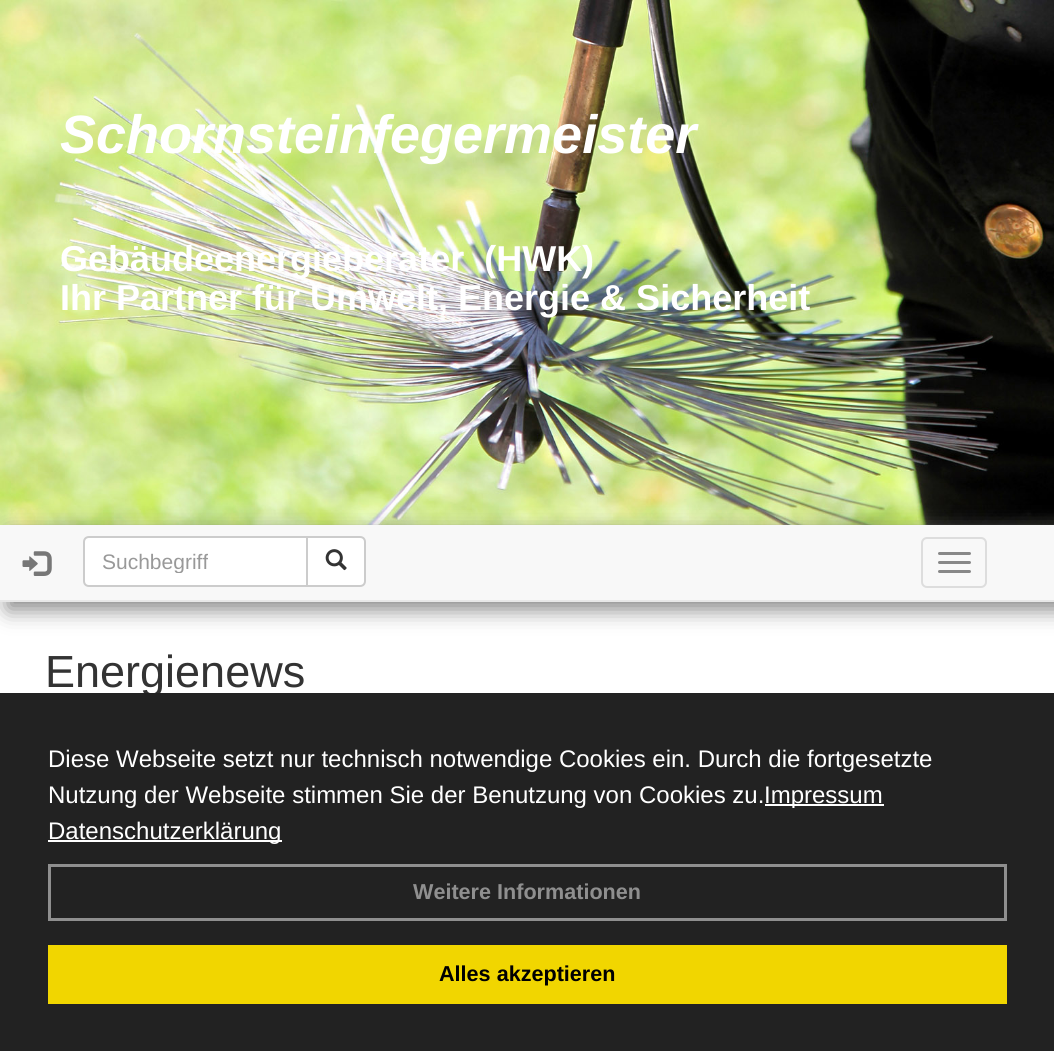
#include <cairo.h>
#include <math.h>
#include <stddef.h>


static void set_color(cairo_t *cr, unsigned color) {
    cairo_set_source_rgb(cr, (color >> 16) / 255.0, (color >> 8 & 255) / 255.0, (color & 255) / 255.0);
}

static void draw_text(cairo_t *cr, double x, double y, const char *s, const char *family, double size, int italic, int bold, unsigned color) {
    cairo_select_font_face(cr, family, italic ? CAIRO_FONT_SLANT_ITALIC : CAIRO_FONT_SLANT_NORMAL,
        bold ? CAIRO_FONT_WEIGHT_BOLD : CAIRO_FONT_WEIGHT_NORMAL);
    cairo_set_font_size(cr, size);
    set_color(cr, color);
    cairo_move_to(cr, x, y);
    cairo_show_text(cr, s);
}

static void fill_rect(cairo_t *cr, double x, double y, double w, double h, unsigned color) {
    set_color(cr, color);
    cairo_rectangle(cr, x, y, w, h);
    cairo_fill(cr);
}

static void rounded_rect(cairo_t *cr, double x, double y, double w, double h, double r) {
    cairo_new_sub_path(cr);
    cairo_arc(cr, x + w - r, y + h - r, r, 0, M_PI / 2);
    cairo_arc(cr, x + r, y + h - r, r, M_PI / 2, M_PI);
    cairo_arc(cr, x + r, y + r, r, M_PI, 1.5 * M_PI);
    cairo_arc(cr, x + w - r, y + r, r, 1.5 * M_PI, 2 * M_PI);
    cairo_close_path(cr);
}

static void draw_shadow(cairo_t *cr, double x, double y, double w, double h, double r, double blur, double alpha) {
    cairo_push_group_with_content(cr, CAIRO_CONTENT_ALPHA);
    cairo_set_operator(cr, CAIRO_OPERATOR_SOURCE);
    for (int i = 15; i >= -15 && fmin(w, h) + blur * i / 3 > 0; i -= 2) {
        double e = blur * i / 6;
        cairo_set_source_rgba(cr, 0, 0, 0, alpha * erfc((i - 1) / 8.5) / 2);
        rounded_rect(cr, x - e, y - e, w + 2 * e, h + 2 * e, fmax(0, fmin(r + e + blur * .6, fmin(w, h) / 2 + e)));
        cairo_fill(cr);
    }
    cairo_pattern_t *soft = cairo_pop_group(cr);
    cairo_mask(cr, soft);
    cairo_pattern_destroy(soft);
}

static void draw_image(cairo_t *cr, const char *path, double x, double y, double w, double h) {
    cairo_surface_t *image = cairo_image_surface_create_from_png(path);
    cairo_save(cr);
    cairo_set_source_surface(cr, image, x, y);
    cairo_rectangle(cr, x, y, w, h);
    cairo_fill(cr);
    cairo_restore(cr);
    cairo_surface_destroy(image);
}

int main(void) {
    cairo_surface_t *surface = cairo_image_surface_create(CAIRO_FORMAT_RGB24, 1054, 1051);
    cairo_t *cr = cairo_create(surface);
    cairo_font_options_t *options = cairo_font_options_create();
    cairo_font_options_set_hint_metrics(options, CAIRO_HINT_METRICS_OFF);
    cairo_font_options_set_hint_style(options, CAIRO_HINT_STYLE_NONE);
    cairo_set_font_options(cr, options);
    cairo_set_miter_limit(cr, 4);
    set_color(cr, 0xFFFFFF);
    cairo_paint(cr);
    draw_image(cr, "assets/img1.png", 0, 0, 1054, 525);
    draw_text(cr, 60, 153, "Schornsteinfegermeister", "Liberation Sans", 54, 1, 1, 0xFFFFFF);
    draw_text(cr, 60, 271, "Gebäudeenergieberater  (HWK)", "Liberation Sans", 36, 0, 1, 0xFFFFFF);
    draw_text(cr, 60, 310, "Ihr Partner für Umwelt, Energie & Sicherheit", "Liberation Sans", 36, 0, 1, 0xFFFFFF);
    set_color(cr, 0x808080);
    draw_shadow(cr, 8, 533, 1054, 76, 0, 11, 1);
    fill_rect(cr, 0, 525, 1054, 75, 0xF8F8F8);
    fill_rect(cr, 0, 600, 1054, 2, 0xE7E7E7);
    draw_image(cr, "assets/img2.png", 22, 551, 30, 25);
    set_color(cr, 0xFFFFFF);
    cairo_new_path(cr);
    cairo_move_to(cr, 89, 537);
    cairo_line_to(cr, 307, 537);
    cairo_line_to(cr, 307, 586);
    cairo_line_to(cr, 89, 586);
    cairo_curve_to(cr, 86, 586, 84, 584, 84, 581);
    cairo_line_to(cr, 84, 542);
    cairo_curve_to(cr, 84, 539, 86, 537, 89, 537);
    cairo_close_path(cr);
    cairo_fill_preserve(cr);
    set_color(cr, 0xCCCCCC);
    cairo_stroke(cr);
    cairo_save(cr);
    cairo_rectangle(cr, 102, 549, 186, 24);
    cairo_clip(cr);
    draw_text(cr, 102, 569, "Suchbegriff", "Liberation Sans", 21, 0, 0, 0x999999);
    cairo_restore(cr);
    set_color(cr, 0xFFFFFF);
    cairo_new_path(cr);
    cairo_move_to(cr, 307, 537);
    cairo_line_to(cr, 360, 537);
    cairo_curve_to(cr, 363, 537, 365, 539, 365, 542);
    cairo_line_to(cr, 365, 581);
    cairo_curve_to(cr, 365, 584, 363, 586, 360, 586);
    cairo_line_to(cr, 307, 586);
    cairo_close_path(cr);
    cairo_fill_preserve(cr);
    set_color(cr, 0xCCCCCC);
    cairo_stroke(cr);
    draw_image(cr, "assets/img3.png", 325, 549, 22, 22);
    rounded_rect(cr, 922, 538, 64, 49, 5);
    set_color(cr, 0xDDDDDD);
    cairo_stroke(cr);
    set_color(cr, 0x888888);
    rounded_rect(cr, 938, 552, 33, 3, 1.5);
    cairo_fill(cr);
    rounded_rect(cr, 938, 561, 33, 3, 1.5);
    cairo_fill(cr);
    rounded_rect(cr, 938, 570, 33, 3, 1.5);
    cairo_fill(cr);
    draw_text(cr, 45, 687, "Energienews", "Liberation Sans", 45, 0, 0, 0x333333);
    fill_rect(cr, 0, 693, 1054, 358, 0x222222);
    draw_text(cr, 48, 767, "Diese Webseite setzt nur technisch notwendige Cookies ein. Durch die fortgesetzte", "Liberation Sans", 24, 0, 0, 0xFFFFFF);
    draw_text(cr, 48, 803, "Nutzung der Webseite stimmen Sie der Benutzung von Cookies zu.", "Liberation Sans", 24, 0, 0, 0xFFFFFF);
    fill_rect(cr, 765, 804, 119, 2, 0xFFFFFF);
    draw_text(cr, 764, 803, "Impressum", "Liberation Sans", 24, 0, 0, 0xFFFFFF);
    fill_rect(cr, 48, 840, 234, 2, 0xFFFFFF);
    draw_text(cr, 48, 839, "Datenschutzerklärung", "Liberation Sans", 24, 0, 0, 0xFFFFFF);
    cairo_rectangle(cr, 49.5, 865.5, 956, 54);
    set_color(cr, 0x8F8F8F);
    cairo_set_line_width(cr, 3);
    cairo_stroke(cr);
    draw_text(cr, 413, 899, "Weitere Informationen", "Liberation Sans", 21.6, 0, 1, 0x8F8F8F);
    fill_rect(cr, 48, 945, 959, 59, 0xF1D600);
    draw_text(cr, 439, 981, "Alles akzeptieren", "Liberation Sans", 21.6, 0, 1, 0x000000);
    cairo_surface_write_to_png(surface, "output.png");
    cairo_font_options_destroy(options);
    cairo_destroy(cr);
    cairo_surface_destroy(surface);
    return 0;
}
